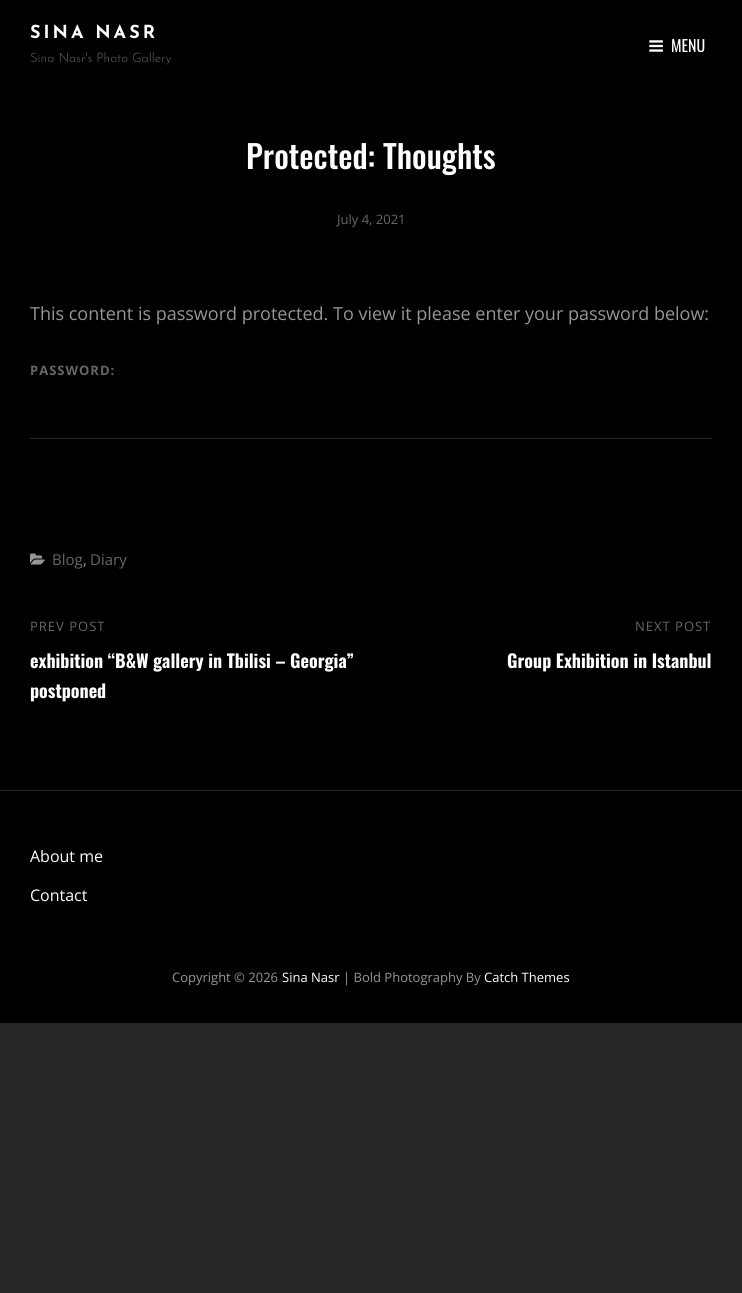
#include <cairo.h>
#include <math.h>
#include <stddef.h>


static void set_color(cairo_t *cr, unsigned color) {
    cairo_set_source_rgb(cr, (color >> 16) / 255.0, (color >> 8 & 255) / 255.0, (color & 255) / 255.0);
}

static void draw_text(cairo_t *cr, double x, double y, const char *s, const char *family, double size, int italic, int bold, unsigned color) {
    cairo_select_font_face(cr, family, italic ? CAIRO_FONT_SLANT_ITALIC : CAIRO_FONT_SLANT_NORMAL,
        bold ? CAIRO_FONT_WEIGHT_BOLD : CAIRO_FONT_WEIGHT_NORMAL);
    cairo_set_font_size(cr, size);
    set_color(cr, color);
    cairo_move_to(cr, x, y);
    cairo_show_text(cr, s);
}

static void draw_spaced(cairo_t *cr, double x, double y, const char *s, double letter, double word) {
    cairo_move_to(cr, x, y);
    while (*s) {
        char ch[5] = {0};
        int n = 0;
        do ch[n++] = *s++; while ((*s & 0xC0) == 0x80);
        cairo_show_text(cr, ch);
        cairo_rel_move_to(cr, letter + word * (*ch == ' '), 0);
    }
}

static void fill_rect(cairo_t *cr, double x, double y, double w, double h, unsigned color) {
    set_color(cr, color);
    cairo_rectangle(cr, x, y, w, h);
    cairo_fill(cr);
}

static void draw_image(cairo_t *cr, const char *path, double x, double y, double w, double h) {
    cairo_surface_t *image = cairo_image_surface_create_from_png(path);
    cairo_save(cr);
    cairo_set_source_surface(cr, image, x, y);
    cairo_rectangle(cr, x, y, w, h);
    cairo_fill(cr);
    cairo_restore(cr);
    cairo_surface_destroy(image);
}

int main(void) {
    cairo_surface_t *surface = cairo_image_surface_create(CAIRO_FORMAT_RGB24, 742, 1293);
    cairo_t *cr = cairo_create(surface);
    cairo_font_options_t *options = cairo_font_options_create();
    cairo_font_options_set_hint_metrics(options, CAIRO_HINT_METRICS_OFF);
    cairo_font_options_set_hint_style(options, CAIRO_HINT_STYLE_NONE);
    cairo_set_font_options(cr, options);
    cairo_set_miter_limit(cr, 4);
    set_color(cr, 0x262626);
    cairo_paint(cr);
    fill_rect(cr, 0, 0, 742, 1023, 0x000000);
    cairo_select_font_face(cr, "Josefin Sans", CAIRO_FONT_SLANT_NORMAL, CAIRO_FONT_WEIGHT_BOLD);
    cairo_set_font_size(cr, 18);
    set_color(cr, 0xFFFFFF);
    draw_spaced(cr, 30, 38, "SINA NASR", 3, 0);
    draw_text(cr, 30, 62, "Sina Nasr's Photo Gallery", "Josefin Sans Light", 13, 0, 0, 0x666666);
    draw_image(cr, "assets/img1.png", 649, 40, 14, 12);
    draw_text(cr, 671, 52, "MENU", "Oswald", 16, 0, 0, 0xFFFFFF);
    draw_text(cr, 246, 169, "Protected: Thoughts", "Oswald Medium", 32, 0, 0, 0xFFFFFF);
    draw_text(cr, 337, 224, "July 4, 2021", "Open Sans", 13, 0, 0, 0x666666);
    draw_text(cr, 30, 320, "This content is password protected. To view it please enter your password below:", "Open Sans", 18, 0, 0, 0x969696);
    cairo_select_font_face(cr, "Open Sans", CAIRO_FONT_SLANT_NORMAL, CAIRO_FONT_WEIGHT_BOLD);
    cairo_set_font_size(cr, 13);
    set_color(cr, 0x666666);
    draw_spaced(cr, 30, 375, "PASSWORD:", 1, 0);
    fill_rect(cr, 30, 438, 682, 1, 0x282828);
    draw_image(cr, "assets/img2.png", 30, 553, 15, 12);
    draw_text(cr, 52, 565, "Blog", "Open Sans", 15, 0, 0, 0x666666);
    draw_text(cr, 83, 565, ",", "Open Sans", 15, 0, 0, 0x969696);
    draw_text(cr, 90, 565, "Diary", "Open Sans", 15, 0, 0, 0x666666);
    cairo_set_font_size(cr, 13);
    draw_spaced(cr, 30, 631, "PREV POST", 1, 0);
    draw_text(cr, 30, 668, "exhibition “B&W gallery in Tbilisi – Georgia”", "Oswald", 18, 0, 1, 0xFFFFFF);
    draw_text(cr, 30, 698, "postponed", "Oswald", 18, 0, 1, 0xFFFFFF);
    cairo_select_font_face(cr, "Open Sans", CAIRO_FONT_SLANT_NORMAL, CAIRO_FONT_WEIGHT_NORMAL);
    cairo_set_font_size(cr, 13);
    set_color(cr, 0x666666);
    draw_spaced(cr, 635, 631, "NEXT POST", 1, 0);
    draw_text(cr, 507, 668, "Group Exhibition in Istanbul", "Oswald", 18, 0, 1, 0xFFFFFF);
    fill_rect(cr, 0, 790, 742, 1, 0x282828);
    draw_text(cr, 30, 862, "About me", "Open Sans", 16, 0, 0, 0xFFFFFF);
    draw_text(cr, 30, 901, "Contact", "Open Sans", 16, 0, 0, 0xFFFFFF);
    draw_text(cr, 172, 982, "Copyright © 2026", "Open Sans", 13, 0, 0, 0x969696);
    draw_text(cr, 282, 982, "Sina Nasr", "Open Sans", 13, 0, 0, 0xFFFFFF);
    draw_text(cr, 343, 982, "| Bold Photography By", "Open Sans", 13, 0, 0, 0x969696);
    draw_text(cr, 484, 982, "Catch Themes", "Open Sans", 13, 0, 0, 0xFFFFFF);
    cairo_surface_write_to_png(surface, "output.png");
    cairo_font_options_destroy(options);
    cairo_destroy(cr);
    cairo_surface_destroy(surface);
    return 0;
}
